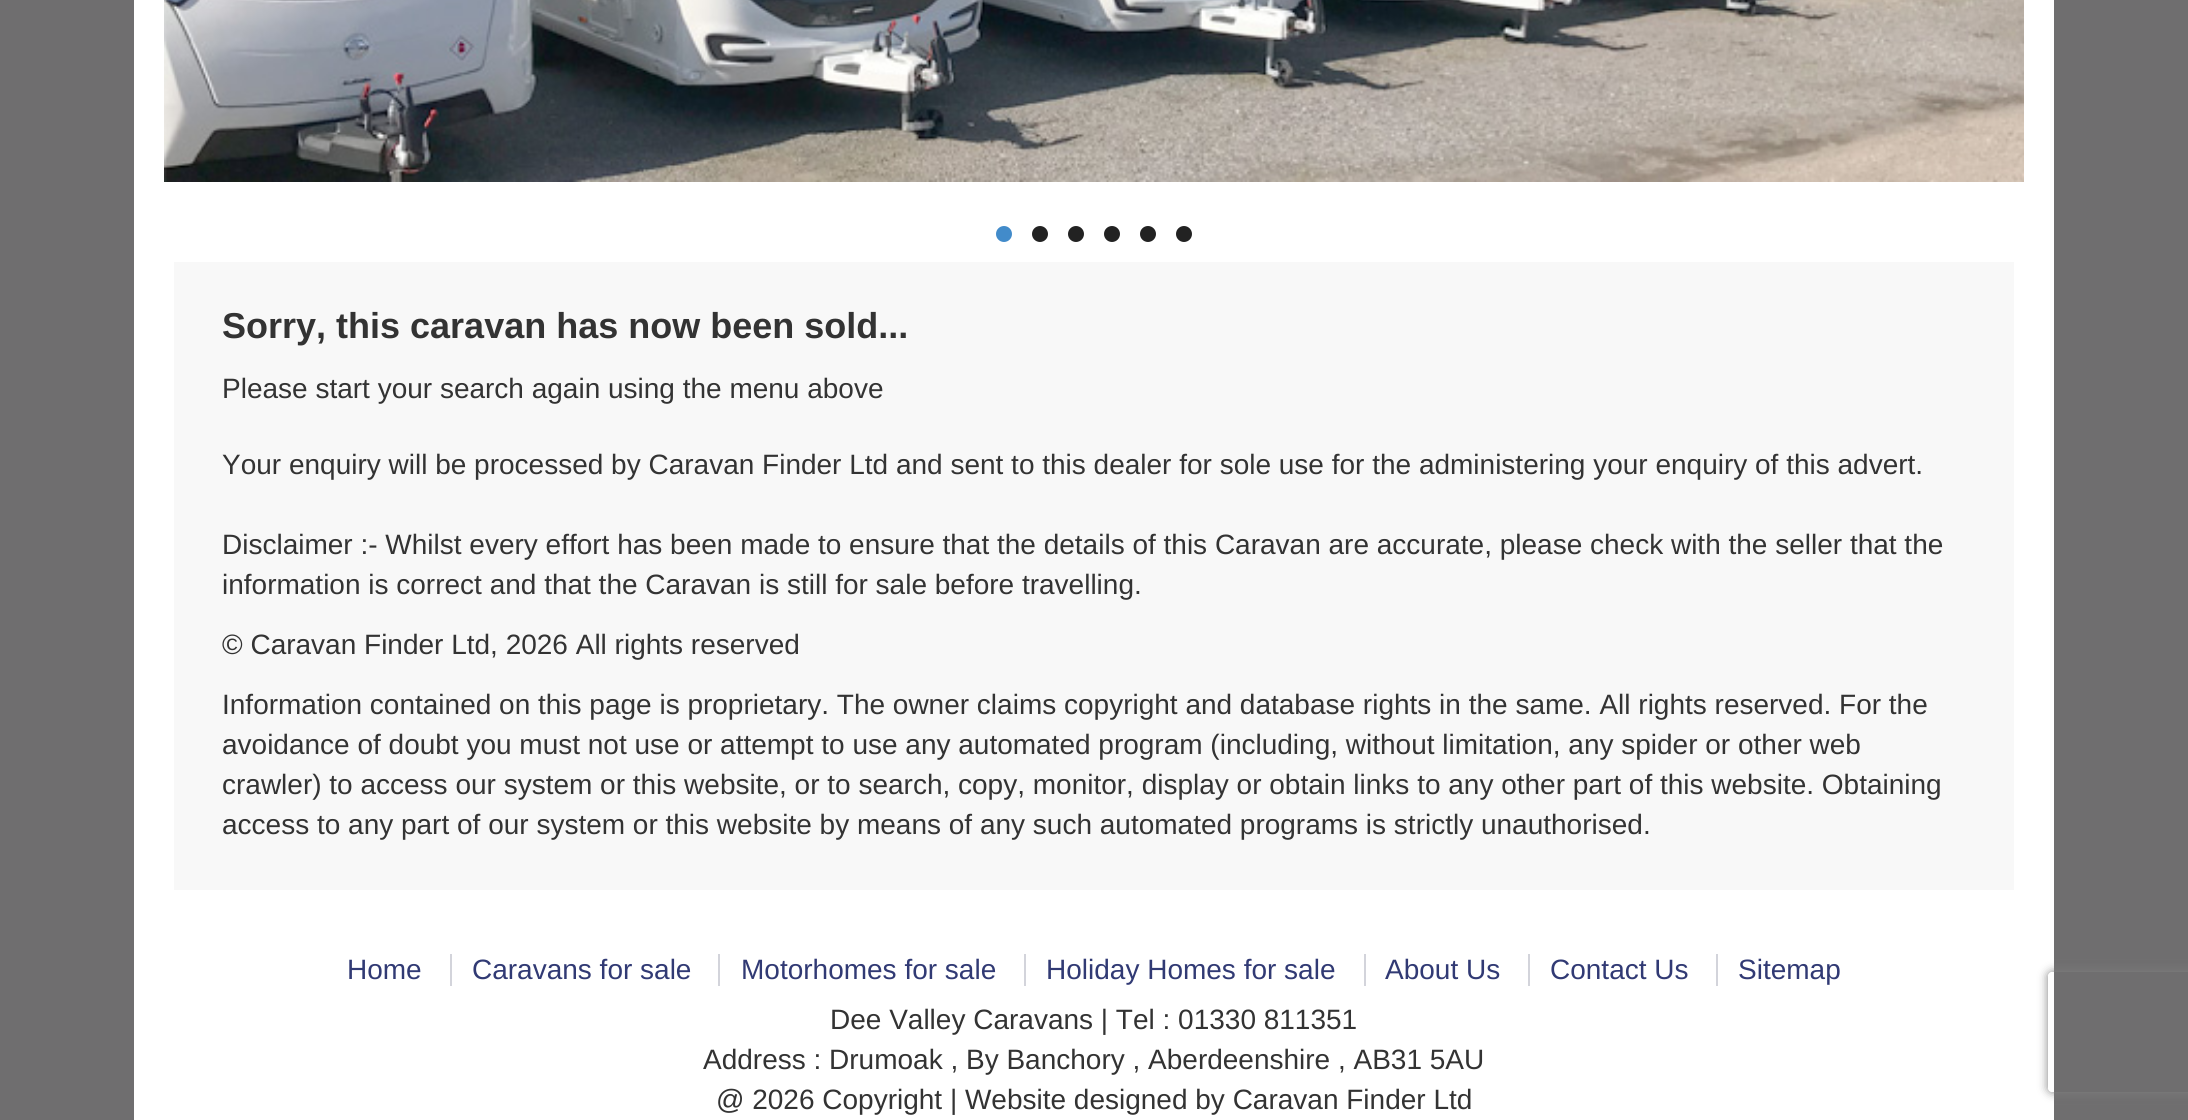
#include <cairo.h>
#include <math.h>
#include <stddef.h>


static void set_color(cairo_t *cr, unsigned color) {
    cairo_set_source_rgb(cr, (color >> 16) / 255.0, (color >> 8 & 255) / 255.0, (color & 255) / 255.0);
}

static void draw_text(cairo_t *cr, double x, double y, const char *s, const char *family, double size, int italic, int bold, unsigned color) {
    cairo_select_font_face(cr, family, italic ? CAIRO_FONT_SLANT_ITALIC : CAIRO_FONT_SLANT_NORMAL,
        bold ? CAIRO_FONT_WEIGHT_BOLD : CAIRO_FONT_WEIGHT_NORMAL);
    cairo_set_font_size(cr, size);
    set_color(cr, color);
    cairo_move_to(cr, x, y);
    cairo_show_text(cr, s);
}

static void fill_rect(cairo_t *cr, double x, double y, double w, double h, unsigned color) {
    set_color(cr, color);
    cairo_rectangle(cr, x, y, w, h);
    cairo_fill(cr);
}

static void rounded_rect(cairo_t *cr, double x, double y, double w, double h, double r) {
    cairo_new_sub_path(cr);
    cairo_arc(cr, x + w - r, y + h - r, r, 0, M_PI / 2);
    cairo_arc(cr, x + r, y + h - r, r, M_PI / 2, M_PI);
    cairo_arc(cr, x + r, y + r, r, M_PI, 1.5 * M_PI);
    cairo_arc(cr, x + w - r, y + r, r, 1.5 * M_PI, 2 * M_PI);
    cairo_close_path(cr);
}

static void draw_shadow(cairo_t *cr, double x, double y, double w, double h, double r, double blur, double alpha) {
    cairo_push_group_with_content(cr, CAIRO_CONTENT_ALPHA);
    cairo_set_operator(cr, CAIRO_OPERATOR_SOURCE);
    for (int i = 15; i >= -15 && fmin(w, h) + blur * i / 3 > 0; i -= 2) {
        double e = blur * i / 6;
        cairo_set_source_rgba(cr, 0, 0, 0, alpha * erfc((i - 1) / 8.5) / 2);
        rounded_rect(cr, x - e, y - e, w + 2 * e, h + 2 * e, fmax(0, fmin(r + e + blur * .6, fmin(w, h) / 2 + e)));
        cairo_fill(cr);
    }
    cairo_pattern_t *soft = cairo_pop_group(cr);
    cairo_mask(cr, soft);
    cairo_pattern_destroy(soft);
}

static void draw_image(cairo_t *cr, const char *path, double x, double y, double w, double h) {
    cairo_surface_t *image = cairo_image_surface_create_from_png(path);
    cairo_save(cr);
    cairo_set_source_surface(cr, image, x, y);
    cairo_rectangle(cr, x, y, w, h);
    cairo_fill(cr);
    cairo_restore(cr);
    cairo_surface_destroy(image);
}

int main(void) {
    cairo_surface_t *surface = cairo_image_surface_create(CAIRO_FORMAT_RGB24, 2188, 1120);
    cairo_t *cr = cairo_create(surface);
    cairo_font_options_t *options = cairo_font_options_create();
    cairo_font_options_set_hint_metrics(options, CAIRO_HINT_METRICS_OFF);
    cairo_font_options_set_hint_style(options, CAIRO_HINT_STYLE_NONE);
    cairo_set_font_options(cr, options);
    cairo_set_miter_limit(cr, 4);
    set_color(cr, 0x6F6E6F);
    cairo_paint(cr);
    fill_rect(cr, 134, 0, 1920, 1120, 0xFFFFFF);
    draw_image(cr, "assets/img1.png", 164, 0, 1860, 182);
    set_color(cr, 0x428BCA);
    cairo_arc(cr, 1004, 234, 8, 0, 2 * M_PI);
    cairo_fill(cr);
    set_color(cr, 0x222222);
    cairo_arc(cr, 1040, 234, 8, 0, 2 * M_PI);
    cairo_fill(cr);
    cairo_arc(cr, 1076, 234, 8, 0, 2 * M_PI);
    cairo_fill(cr);
    cairo_arc(cr, 1112, 234, 8, 0, 2 * M_PI);
    cairo_fill(cr);
    cairo_arc(cr, 1148, 234, 8, 0, 2 * M_PI);
    cairo_fill(cr);
    cairo_arc(cr, 1184, 234, 8, 0, 2 * M_PI);
    cairo_fill(cr);
    fill_rect(cr, 174, 262, 1840, 628, 0xF8F8F8);
    draw_text(cr, 222, 338, "Sorry, this caravan has now been sold...", "Liberation Sans", 36, 0, 1, 0x333333);
    draw_text(cr, 222, 398, "Please start your search again using the menu above", "Liberation Sans", 28, 0, 0, 0x333333);
    draw_text(cr, 222, 474, "Your enquiry will be processed by Caravan Finder Ltd and sent to this dealer for sole use for the administering your enquiry of this advert.", "Liberation Sans", 28, 0, 0, 0x333333);
    draw_text(cr, 222, 554, "Disclaimer :- Whilst every effort has been made to ensure that the details of this Caravan are accurate, please check with the seller that the", "Liberation Sans", 28, 0, 0, 0x333333);
    draw_text(cr, 222, 594, "information is correct and that the Caravan is still for sale before travelling.", "Liberation Sans", 28, 0, 0, 0x333333);
    draw_text(cr, 222, 654, "© Caravan Finder Ltd, 2026 All rights reserved", "Liberation Sans", 28, 0, 0, 0x333333);
    draw_text(cr, 222, 714, "Information contained on this page is proprietary. The owner claims copyright and database rights in the same. All rights reserved. For the", "Liberation Sans", 28, 0, 0, 0x333333);
    draw_text(cr, 222, 754, "avoidance of doubt you must not use or attempt to use any automated program (including, without limitation, any spider or other web", "Liberation Sans", 28, 0, 0, 0x333333);
    draw_text(cr, 222, 794, "crawler) to access our system or this website, or to search, copy, monitor, display or obtain links to any other part of this website. Obtaining", "Liberation Sans", 28, 0, 0, 0x333333);
    draw_text(cr, 222, 834, "access to any part of our system or this website by means of any such automated programs is strictly unauthorised.", "Liberation Sans", 28, 0, 0, 0x333333);
    draw_text(cr, 347, 979, "Home", "Liberation Sans", 28, 0, 0, 0x313A74);
    draw_text(cr, 472, 979, "Caravans for sale", "Liberation Sans", 28, 0, 0, 0x313A74);
    fill_rect(cr, 450, 954, 2, 32, 0xD3D4DB);
    draw_text(cr, 741, 979, "Motorhomes for sale", "Liberation Sans", 28, 0, 0, 0x313A74);
    fill_rect(cr, 718, 954, 2, 32, 0xD3D4DB);
    draw_text(cr, 1046, 979, "Holiday Homes for sale", "Liberation Sans", 28, 0, 0, 0x313A74);
    fill_rect(cr, 1024, 954, 2, 32, 0xD3D4DB);
    draw_text(cr, 1385, 979, "About Us", "Liberation Sans", 28, 0, 0, 0x313A74);
    fill_rect(cr, 1364, 954, 2, 32, 0xD3D4DB);
    draw_text(cr, 1550, 979, "Contact Us", "Liberation Sans", 28, 0, 0, 0x313A74);
    fill_rect(cr, 1528, 954, 2, 32, 0xD3D4DB);
    draw_text(cr, 1738, 979, "Sitemap", "Liberation Sans", 28, 0, 0, 0x313A74);
    fill_rect(cr, 1716, 954, 2, 32, 0xD3D4DB);
    draw_text(cr, 830, 1029, "Dee Valley Caravans | Tel : 01330 811351", "Liberation Sans", 28, 0, 0, 0x333333);
    draw_text(cr, 703, 1069, "Address : Drumoak , By Banchory , Aberdeenshire , AB31 5AU", "Liberation Sans", 28, 0, 0, 0x333333);
    draw_text(cr, 716, 1109, "@ 2026 Copyright | Website designed by Caravan Finder Ltd", "Liberation Sans", 28, 0, 0, 0x333333);
    cairo_save(cr);
    cairo_set_fill_rule(cr, CAIRO_FILL_RULE_EVEN_ODD);
    cairo_new_path(cr);
    cairo_move_to(cr, 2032, 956);
    cairo_line_to(cr, 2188, 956);
    cairo_line_to(cr, 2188, 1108);
    cairo_line_to(cr, 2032, 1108);
    cairo_close_path(cr);
    cairo_move_to(cr, 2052, 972);
    cairo_line_to(cr, 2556, 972);
    cairo_curve_to(cr, 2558, 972, 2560, 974, 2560, 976);
    cairo_line_to(cr, 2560, 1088);
    cairo_curve_to(cr, 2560, 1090, 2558, 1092, 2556, 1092);
    cairo_line_to(cr, 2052, 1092);
    cairo_curve_to(cr, 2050, 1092, 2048, 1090, 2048, 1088);
    cairo_line_to(cr, 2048, 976);
    cairo_curve_to(cr, 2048, 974, 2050, 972, 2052, 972);
    cairo_close_path(cr);
    cairo_clip(cr);
    set_color(cr, 0x808080);
    draw_shadow(cr, 2048, 972, 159, 120, 4, 5, 1);
    cairo_restore(cr);
    cairo_surface_write_to_png(surface, "output.png");
    cairo_font_options_destroy(options);
    cairo_destroy(cr);
    cairo_surface_destroy(surface);
    return 0;
}
